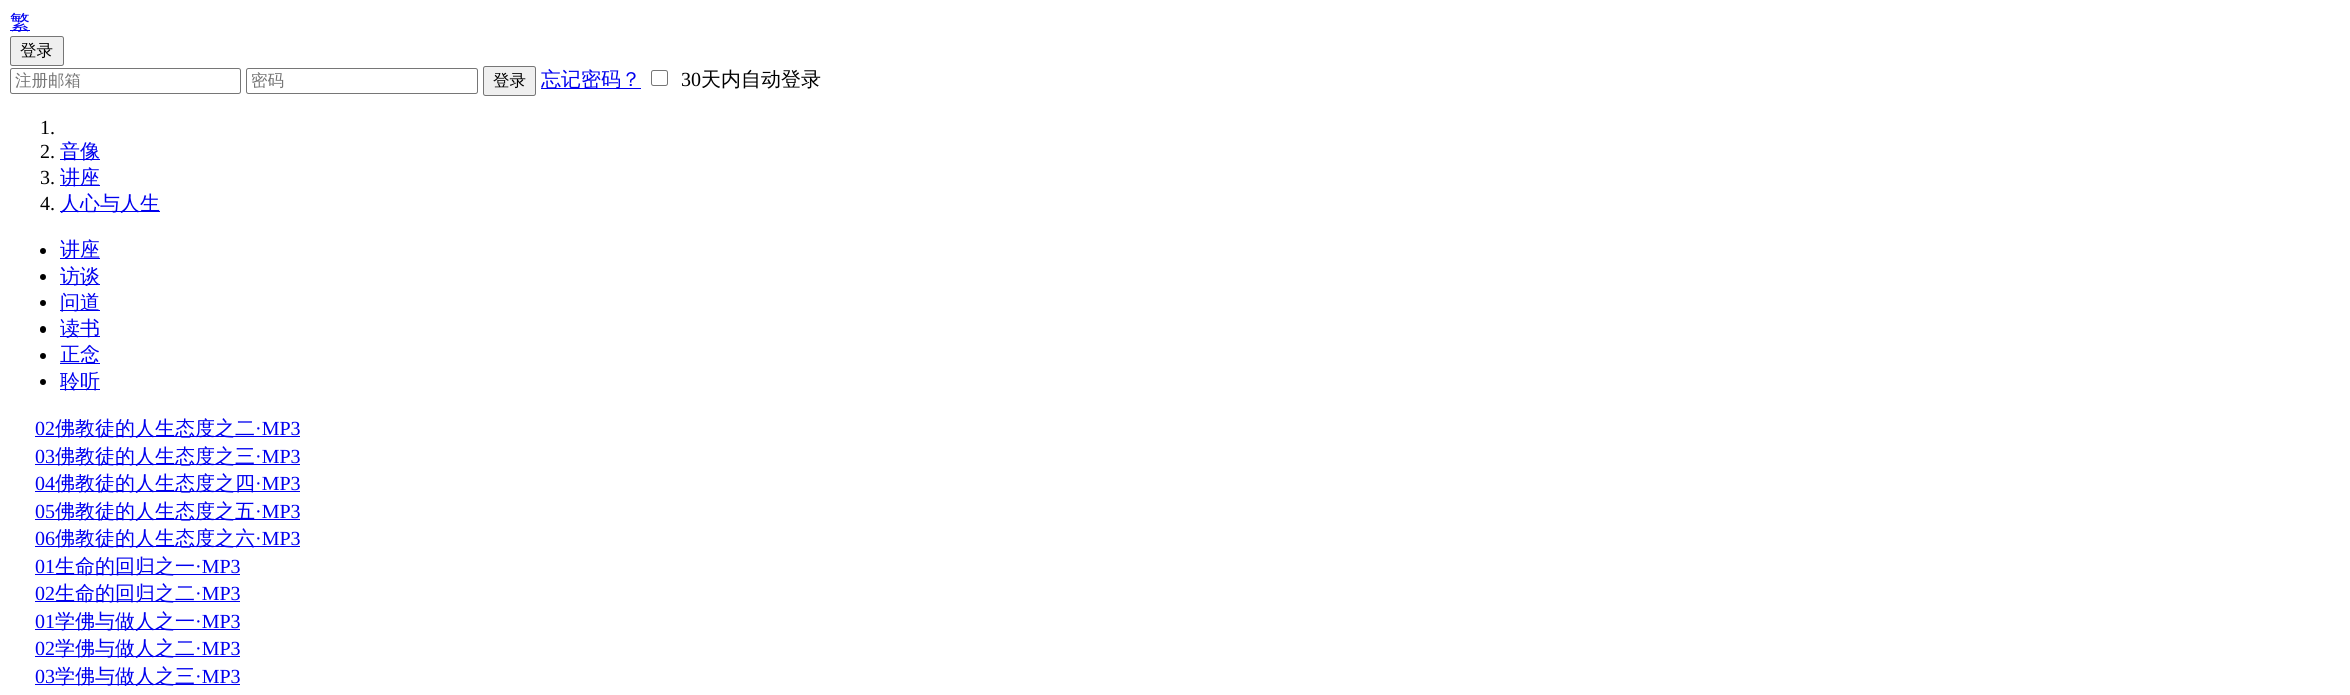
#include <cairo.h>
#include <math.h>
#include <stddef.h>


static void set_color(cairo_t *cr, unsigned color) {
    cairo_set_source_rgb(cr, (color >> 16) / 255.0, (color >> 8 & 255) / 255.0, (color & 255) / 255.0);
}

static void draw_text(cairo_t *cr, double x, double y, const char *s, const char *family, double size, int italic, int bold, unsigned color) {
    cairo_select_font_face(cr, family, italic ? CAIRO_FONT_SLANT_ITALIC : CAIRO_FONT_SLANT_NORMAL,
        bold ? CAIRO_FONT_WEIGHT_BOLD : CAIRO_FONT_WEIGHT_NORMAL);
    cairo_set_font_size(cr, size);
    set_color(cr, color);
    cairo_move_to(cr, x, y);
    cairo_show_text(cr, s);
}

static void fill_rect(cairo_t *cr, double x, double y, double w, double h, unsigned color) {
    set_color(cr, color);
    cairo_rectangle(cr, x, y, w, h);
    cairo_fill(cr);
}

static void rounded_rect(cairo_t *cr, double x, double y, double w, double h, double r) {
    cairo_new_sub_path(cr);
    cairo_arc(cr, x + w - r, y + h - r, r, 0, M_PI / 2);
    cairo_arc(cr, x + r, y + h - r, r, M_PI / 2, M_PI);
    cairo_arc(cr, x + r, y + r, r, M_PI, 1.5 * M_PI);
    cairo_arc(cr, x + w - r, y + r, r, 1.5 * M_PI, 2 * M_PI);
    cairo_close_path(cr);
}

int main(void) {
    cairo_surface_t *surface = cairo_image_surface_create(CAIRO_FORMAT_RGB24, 2350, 695);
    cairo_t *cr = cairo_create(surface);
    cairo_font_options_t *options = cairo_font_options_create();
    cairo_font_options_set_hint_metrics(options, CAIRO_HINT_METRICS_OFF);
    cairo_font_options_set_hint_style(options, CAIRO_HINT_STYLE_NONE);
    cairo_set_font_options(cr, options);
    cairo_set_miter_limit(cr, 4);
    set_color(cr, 0xFFFFFF);
    cairo_paint(cr);
    fill_rect(cr, 10, 30, 20, 1, 0x0000EE);
    draw_text(cr, 10, 29, "繁", "WenQuanYi Zen Hei Medium", 20, 0, 0, 0x0000EE);
    set_color(cr, 0xEFEFEF);
    rounded_rect(cr, 10.5, 36.5, 53, 29, 2);
    cairo_fill_preserve(cr);
    set_color(cr, 0x767676);
    cairo_set_line_width(cr, 1);
    cairo_stroke(cr);
    draw_text(cr, 20, 56, "登录", "WenQuanYi Zen Hei Medium", 16.5, 0, 0, 0x000000);
    rounded_rect(cr, 10.5, 68.5, 230, 25, 2);
    set_color(cr, 0x767676);
    cairo_stroke(cr);
    draw_text(cr, 15, 86, "注册邮箱", "WenQuanYi Zen Hei Medium", 16.5, 0, 0, 0x757575);
    rounded_rect(cr, 246.5, 68.5, 231, 25, 2);
    set_color(cr, 0x767676);
    cairo_stroke(cr);
    draw_text(cr, 251, 86, "密码", "WenQuanYi Zen Hei Medium", 16.5, 0, 0, 0x757575);
    set_color(cr, 0xEFEFEF);
    rounded_rect(cr, 483.5, 66.5, 52, 29, 2);
    cairo_fill_preserve(cr);
    set_color(cr, 0x767676);
    cairo_stroke(cr);
    draw_text(cr, 493, 86, "登录", "WenQuanYi Zen Hei Medium", 16.5, 0, 0, 0x000000);
    fill_rect(cr, 541, 88, 100, 1, 0x0000EE);
    draw_text(cr, 541, 86, "忘记密码？", "WenQuanYi Zen Hei Medium", 20, 0, 0, 0x0000EE);
    rounded_rect(cr, 651.5, 70.5, 16, 15, 2);
    set_color(cr, 0x767676);
    cairo_stroke(cr);
    draw_text(cr, 681, 86, "30", "Liberation Serif", 20, 0, 0, 0x000000);
    draw_text(cr, 701, 86, "天内自动登录", "WenQuanYi Zen Hei Medium", 20, 0, 0, 0x000000);
    draw_text(cr, 40, 134, "1.", "Liberation Serif", 20, 0, 0, 0x000000);
    draw_text(cr, 40, 158, "2.", "Liberation Serif", 20, 0, 0, 0x000000);
    fill_rect(cr, 60, 159, 40, 1, 0x0000EE);
    draw_text(cr, 60, 158, "音像", "WenQuanYi Zen Hei Medium", 20, 0, 0, 0x0000EE);
    draw_text(cr, 40, 184, "3.", "Liberation Serif", 20, 0, 0, 0x000000);
    fill_rect(cr, 60, 185, 40, 1, 0x0000EE);
    draw_text(cr, 60, 184, "讲座", "WenQuanYi Zen Hei Medium", 20, 0, 0, 0x0000EE);
    draw_text(cr, 40, 210, "4.", "Liberation Serif", 20, 0, 0, 0x000000);
    fill_rect(cr, 60, 211, 100, 1, 0x0000EE);
    draw_text(cr, 60, 210, "人心与人生", "WenQuanYi Zen Hei Medium", 20, 0, 0, 0x0000EE);
    set_color(cr, 0x000000);
    cairo_new_path(cr);
    cairo_arc(cr, 43, 251, 3, 0, 2 * M_PI);
    cairo_fill(cr);
    fill_rect(cr, 60, 258, 40, 1, 0x0000EE);
    draw_text(cr, 60, 256, "讲座", "WenQuanYi Zen Hei Medium", 20, 0, 0, 0x0000EE);
    set_color(cr, 0x000000);
    cairo_new_path(cr);
    cairo_arc(cr, 43, 277, 3, 0, 2 * M_PI);
    cairo_fill(cr);
    fill_rect(cr, 60, 284, 40, 1, 0x0000EE);
    draw_text(cr, 60, 283, "访谈", "WenQuanYi Zen Hei Medium", 20, 0, 0, 0x0000EE);
    set_color(cr, 0x000000);
    cairo_new_path(cr);
    cairo_arc(cr, 43, 303, 3, 0, 2 * M_PI);
    cairo_fill(cr);
    fill_rect(cr, 60, 310, 40, 1, 0x0000EE);
    draw_text(cr, 60, 309, "问道", "WenQuanYi Zen Hei Medium", 20, 0, 0, 0x0000EE);
    set_color(cr, 0x000000);
    rounded_rect(cr, 40, 326, 6, 7, 3);
    cairo_fill(cr);
    fill_rect(cr, 60, 336, 40, 1, 0x0000EE);
    draw_text(cr, 60, 335, "读书", "WenQuanYi Zen Hei Medium", 20, 0, 0, 0x0000EE);
    set_color(cr, 0x000000);
    cairo_new_path(cr);
    cairo_arc(cr, 43, 356, 3, 0, 2 * M_PI);
    cairo_fill(cr);
    fill_rect(cr, 60, 363, 40, 1, 0x0000EE);
    draw_text(cr, 60, 361, "正念", "WenQuanYi Zen Hei Medium", 20, 0, 0, 0x0000EE);
    set_color(cr, 0x000000);
    cairo_new_path(cr);
    cairo_arc(cr, 43, 382, 3, 0, 2 * M_PI);
    cairo_fill(cr);
    fill_rect(cr, 60, 389, 40, 1, 0x0000EE);
    draw_text(cr, 60, 388, "聆听", "WenQuanYi Zen Hei Medium", 20, 0, 0, 0x0000EE);
    draw_text(cr, 35, 435, "02", "Liberation Serif", 20, 0, 0, 0x0000EE);
    fill_rect(cr, 35, 436, 265, 1, 0x0000EE);
    draw_text(cr, 55, 435, "佛教徒的人生态度之二", "WenQuanYi Zen Hei Medium", 20, 0, 0, 0x0000EE);
    draw_text(cr, 255, 435, "·MP3", "Liberation Serif", 20, 0, 0, 0x0000EE);
    draw_text(cr, 35, 463, "03", "Liberation Serif", 20, 0, 0, 0x0000EE);
    fill_rect(cr, 35, 464, 265, 1, 0x0000EE);
    draw_text(cr, 55, 463, "佛教徒的人生态度之三", "WenQuanYi Zen Hei Medium", 20, 0, 0, 0x0000EE);
    draw_text(cr, 255, 463, "·MP3", "Liberation Serif", 20, 0, 0, 0x0000EE);
    draw_text(cr, 35, 490, "04", "Liberation Serif", 20, 0, 0, 0x0000EE);
    fill_rect(cr, 35, 491, 265, 1, 0x0000EE);
    draw_text(cr, 55, 490, "佛教徒的人生态度之四", "WenQuanYi Zen Hei Medium", 20, 0, 0, 0x0000EE);
    draw_text(cr, 255, 490, "·MP3", "Liberation Serif", 20, 0, 0, 0x0000EE);
    draw_text(cr, 35, 518, "05", "Liberation Serif", 20, 0, 0, 0x0000EE);
    fill_rect(cr, 35, 519, 265, 1, 0x0000EE);
    draw_text(cr, 55, 518, "佛教徒的人生态度之五", "WenQuanYi Zen Hei Medium", 20, 0, 0, 0x0000EE);
    draw_text(cr, 255, 518, "·MP3", "Liberation Serif", 20, 0, 0, 0x0000EE);
    draw_text(cr, 35, 545, "06", "Liberation Serif", 20, 0, 0, 0x0000EE);
    fill_rect(cr, 35, 546, 265, 1, 0x0000EE);
    draw_text(cr, 55, 545, "佛教徒的人生态度之六", "WenQuanYi Zen Hei Medium", 20, 0, 0, 0x0000EE);
    draw_text(cr, 255, 545, "·MP3", "Liberation Serif", 20, 0, 0, 0x0000EE);
    draw_text(cr, 35, 573, "01", "Liberation Serif", 20, 0, 0, 0x0000EE);
    fill_rect(cr, 35, 574, 205, 1, 0x0000EE);
    draw_text(cr, 55, 573, "生命的回归之一", "WenQuanYi Zen Hei Medium", 20, 0, 0, 0x0000EE);
    draw_text(cr, 195, 573, "·MP3", "Liberation Serif", 20, 0, 0, 0x0000EE);
    draw_text(cr, 35, 600, "02", "Liberation Serif", 20, 0, 0, 0x0000EE);
    fill_rect(cr, 35, 601, 205, 1, 0x0000EE);
    draw_text(cr, 55, 600, "生命的回归之二", "WenQuanYi Zen Hei Medium", 20, 0, 0, 0x0000EE);
    draw_text(cr, 195, 600, "·MP3", "Liberation Serif", 20, 0, 0, 0x0000EE);
    draw_text(cr, 35, 628, "01", "Liberation Serif", 20, 0, 0, 0x0000EE);
    fill_rect(cr, 35, 629, 205, 1, 0x0000EE);
    draw_text(cr, 55, 628, "学佛与做人之一", "WenQuanYi Zen Hei Medium", 20, 0, 0, 0x0000EE);
    draw_text(cr, 195, 628, "·MP3", "Liberation Serif", 20, 0, 0, 0x0000EE);
    draw_text(cr, 35, 655, "02", "Liberation Serif", 20, 0, 0, 0x0000EE);
    fill_rect(cr, 35, 656, 205, 1, 0x0000EE);
    draw_text(cr, 55, 655, "学佛与做人之二", "WenQuanYi Zen Hei Medium", 20, 0, 0, 0x0000EE);
    draw_text(cr, 195, 655, "·MP3", "Liberation Serif", 20, 0, 0, 0x0000EE);
    draw_text(cr, 35, 683, "03", "Liberation Serif", 20, 0, 0, 0x0000EE);
    fill_rect(cr, 35, 684, 205, 1, 0x0000EE);
    draw_text(cr, 55, 683, "学佛与做人之三", "WenQuanYi Zen Hei Medium", 20, 0, 0, 0x0000EE);
    draw_text(cr, 195, 683, "·MP3", "Liberation Serif", 20, 0, 0, 0x0000EE);
    cairo_surface_write_to_png(surface, "output.png");
    cairo_font_options_destroy(options);
    cairo_destroy(cr);
    cairo_surface_destroy(surface);
    return 0;
}
